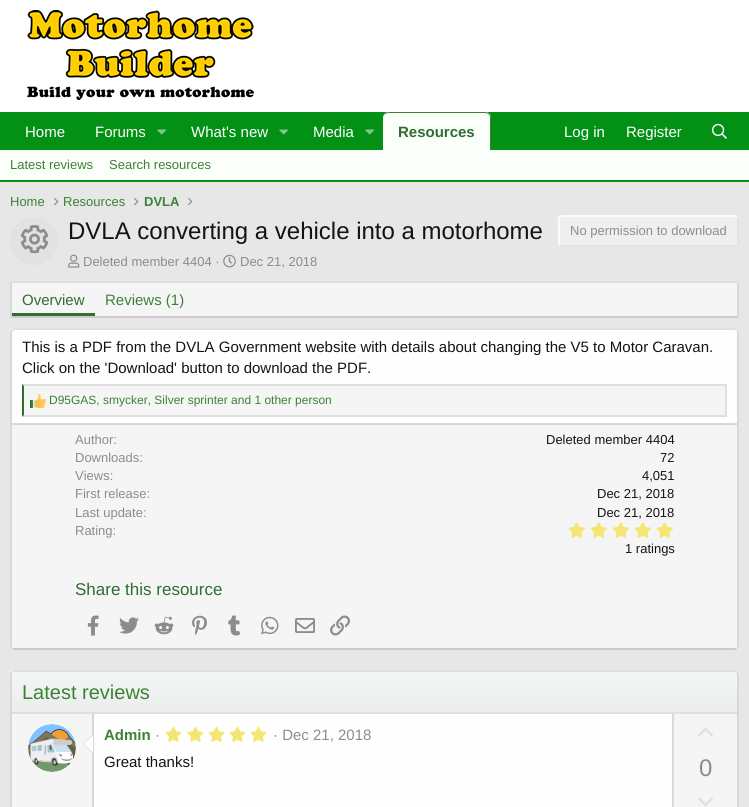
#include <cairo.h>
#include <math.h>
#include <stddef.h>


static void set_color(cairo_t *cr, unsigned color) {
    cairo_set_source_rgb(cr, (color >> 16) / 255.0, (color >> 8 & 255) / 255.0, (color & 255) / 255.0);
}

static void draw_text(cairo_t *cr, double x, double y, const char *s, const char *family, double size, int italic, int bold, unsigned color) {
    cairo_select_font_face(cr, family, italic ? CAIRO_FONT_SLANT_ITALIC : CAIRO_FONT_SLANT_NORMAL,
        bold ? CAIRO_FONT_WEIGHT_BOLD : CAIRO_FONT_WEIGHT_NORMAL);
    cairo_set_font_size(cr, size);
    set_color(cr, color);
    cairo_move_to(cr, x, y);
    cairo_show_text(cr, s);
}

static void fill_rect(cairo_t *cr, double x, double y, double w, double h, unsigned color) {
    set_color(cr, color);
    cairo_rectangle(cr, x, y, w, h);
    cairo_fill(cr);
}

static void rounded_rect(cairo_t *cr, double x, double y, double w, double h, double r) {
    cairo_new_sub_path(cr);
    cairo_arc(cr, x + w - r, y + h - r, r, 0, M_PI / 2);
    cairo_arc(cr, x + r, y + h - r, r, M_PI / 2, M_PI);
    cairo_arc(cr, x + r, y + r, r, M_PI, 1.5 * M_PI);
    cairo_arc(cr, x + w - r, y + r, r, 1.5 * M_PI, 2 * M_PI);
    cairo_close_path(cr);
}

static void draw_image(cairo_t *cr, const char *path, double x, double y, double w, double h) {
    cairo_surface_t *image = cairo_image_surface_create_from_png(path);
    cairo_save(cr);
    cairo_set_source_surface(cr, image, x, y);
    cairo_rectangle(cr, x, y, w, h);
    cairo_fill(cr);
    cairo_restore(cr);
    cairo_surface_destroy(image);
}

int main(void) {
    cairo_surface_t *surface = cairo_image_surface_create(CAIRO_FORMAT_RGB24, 749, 807);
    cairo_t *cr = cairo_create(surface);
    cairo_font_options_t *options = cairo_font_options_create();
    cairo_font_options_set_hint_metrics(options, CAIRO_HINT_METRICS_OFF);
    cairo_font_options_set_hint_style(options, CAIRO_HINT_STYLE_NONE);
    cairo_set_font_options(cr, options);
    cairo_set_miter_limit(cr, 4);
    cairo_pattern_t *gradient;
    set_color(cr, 0xE7E7E7);
    cairo_paint(cr);
    fill_rect(cr, 0, 0, 749, 112, 0xFFFFFF);
    draw_image(cr, "assets/img1.png", 27, 10, 227, 90);
    fill_rect(cr, 0, 112, 749, 38, 0x029115);
    draw_text(cr, 25, 137, "Home", "Liberation Sans", 15, 0, 0, 0xFEFEFE);
    draw_text(cr, 95, 137, "Forums", "Liberation Sans", 15, 0, 0, 0xFEFEFE);
    draw_image(cr, "assets/img2.png", 157, 129, 9, 6);
    draw_text(cr, 191, 137, "What's new", "Liberation Sans", 15, 0, 0, 0xFEFEFE);
    draw_image(cr, "assets/img2.png", 279, 129, 9, 6);
    draw_text(cr, 313, 137, "Media", "Liberation Sans", 15, 0, 0, 0xFEFEFE);
    draw_image(cr, "assets/img2.png", 365, 129, 9, 6);
    set_color(cr, 0xFBFFFA);
    cairo_new_path(cr);
    cairo_move_to(cr, 389, 112);
    cairo_line_to(cr, 485, 112);
    cairo_curve_to(cr, 488.5, 112, 491, 114.5, 491, 118);
    cairo_line_to(cr, 491, 150);
    cairo_line_to(cr, 383, 150);
    cairo_line_to(cr, 383, 118);
    cairo_curve_to(cr, 383, 114.5, 385.5, 112, 389, 112);
    cairo_close_path(cr);
    cairo_fill(cr);
    set_color(cr, 0x3B8234);
    cairo_set_fill_rule(cr, CAIRO_FILL_RULE_EVEN_ODD);
    cairo_new_path(cr);
    cairo_move_to(cr, 389, 112);
    cairo_line_to(cr, 485, 112);
    cairo_curve_to(cr, 488, 112, 491, 115, 491, 118);
    cairo_line_to(cr, 491, 150);
    cairo_line_to(cr, 383, 150);
    cairo_line_to(cr, 383, 118);
    cairo_curve_to(cr, 383, 115, 386, 112, 389, 112);
    cairo_close_path(cr);
    cairo_move_to(cr, 389, 113);
    cairo_line_to(cr, 485, 113);
    cairo_curve_to(cr, 488, 113, 490, 115, 490, 118);
    cairo_line_to(cr, 490, 150);
    cairo_line_to(cr, 383, 150);
    cairo_line_to(cr, 383, 118);
    cairo_curve_to(cr, 383, 115, 386, 113, 389, 113);
    cairo_close_path(cr);
    cairo_fill(cr);
    draw_text(cr, 398, 137, "Resources", "Liberation Sans", 15, 0, 1, 0x306D31);
    draw_text(cr, 564, 137, "Log in", "Liberation Sans", 15, 0, 0, 0xFEFEFE);
    draw_text(cr, 626, 137, "Register", "Liberation Sans", 15, 0, 0, 0xFEFEFE);
    draw_image(cr, "assets/img3.png", 712, 123, 15, 16);
    fill_rect(cr, 0, 150, 749, 30, 0xFBFFFA);
    fill_rect(cr, 0, 180, 749, 2, 0x029115);
    draw_text(cr, 10, 169, "Latest reviews", "Liberation Sans", 13, 0, 0, 0x3B8234);
    draw_text(cr, 109, 169, "Search resources", "Liberation Sans", 13, 0, 0, 0x3B8234);
    draw_text(cr, 10, 206, "Home", "Liberation Sans", 13, 0, 0, 0x3B8234);
    draw_image(cr, "assets/img4.png", 54, 198, 5, 8);
    draw_text(cr, 63, 206, "Resources", "Liberation Sans", 13, 0, 0, 0x3B8234);
    draw_image(cr, "assets/img4.png", 134, 198, 5, 8);
    draw_text(cr, 144, 206, "DVLA", "Liberation Sans", 13, 0, 1, 0x3B8234);
    draw_image(cr, "assets/img4.png", 188, 198, 5, 8);
    set_color(cr, 0xE2E2E2);
    cairo_arc(cr, 34, 241, 24, 0, 2 * M_PI);
    cairo_fill(cr);
    draw_image(cr, "assets/img5.png", 20, 225, 29, 29);
    draw_text(cr, 68, 239, "DVLA converting a vehicle into a motorhome", "Liberation Sans", 24, 0, 0, 0x141414);
    set_color(cr, 0xEFEFEF);
    rounded_rect(cr, 558, 215, 181, 32, 4);
    cairo_fill(cr);
    cairo_new_path(cr);
    cairo_move_to(cr, 737, 217);
    cairo_curve_to(cr, 739, 219, 738, 232, 738, 235);
    cairo_curve_to(cr, 738, 237, 740, 246, 735, 246);
    cairo_line_to(cr, 562, 246);
    cairo_line_to(cr, 560, 245);
    set_color(cr, 0xE2E2E2);
    cairo_stroke(cr);
    cairo_new_path(cr);
    cairo_move_to(cr, 560, 245);
    cairo_curve_to(cr, 558, 243, 559, 230, 559, 227);
    cairo_curve_to(cr, 559, 225, 557, 216, 562, 216);
    cairo_line_to(cr, 735, 216);
    cairo_line_to(cr, 737, 217);
    set_color(cr, 0xFBFBFB);
    cairo_stroke(cr);
    draw_text(cr, 570, 235, "No permission to download", "Liberation Sans", 13, 0, 0, 0x8C8C8C);
    draw_image(cr, "assets/img6.png", 68, 254, 12, 14);
    draw_text(cr, 83, 266, "Deleted member 4404 ·", "Liberation Sans", 13, 0, 0, 0x8C8C8C);
    draw_image(cr, "assets/img7.png", 223, 254, 13, 14);
    draw_text(cr, 240, 266, "Dec 21, 2018", "Liberation Sans", 13, 0, 0, 0x8C8C8C);
    fill_rect(cr, 10, 281, 729, 37, 0xF5F5F5);
    set_color(cr, 0xDFDFDF);
    cairo_set_fill_rule(cr, CAIRO_FILL_RULE_WINDING);
    cairo_new_path(cr);
    cairo_move_to(cr, 10, 281);
    cairo_line_to(cr, 739, 281);
    cairo_line_to(cr, 737, 283);
    cairo_line_to(cr, 12, 283);
    cairo_close_path(cr);
    cairo_fill(cr);
    set_color(cr, 0xD8D8D8);
    cairo_new_path(cr);
    cairo_move_to(cr, 739, 281);
    cairo_line_to(cr, 739, 318);
    cairo_line_to(cr, 737, 316);
    cairo_line_to(cr, 737, 283);
    cairo_close_path(cr);
    cairo_fill(cr);
    set_color(cr, 0xCBCBCB);
    cairo_new_path(cr);
    cairo_move_to(cr, 739, 318);
    cairo_line_to(cr, 10, 318);
    cairo_line_to(cr, 12, 316);
    cairo_line_to(cr, 737, 316);
    cairo_close_path(cr);
    cairo_fill(cr);
    set_color(cr, 0xD8D8D8);
    cairo_new_path(cr);
    cairo_move_to(cr, 10, 318);
    cairo_line_to(cr, 10, 281);
    cairo_line_to(cr, 12, 283);
    cairo_line_to(cr, 12, 316);
    cairo_close_path(cr);
    cairo_fill(cr);
    fill_rect(cr, 12, 313, 83, 3, 0x306D31);
    draw_text(cr, 22, 305, "Overview", "Liberation Sans", 15, 0, 0, 0x306D31);
    draw_text(cr, 105, 305, "Reviews (1)", "Liberation Sans", 15, 0, 0, 0x3B8234);
    set_color(cr, 0xFEFEFE);
    rounded_rect(cr, 10, 328, 729, 322, 4);
    cairo_fill(cr);
    cairo_new_path(cr);
    cairo_move_to(cr, 12, 330);
    cairo_line_to(cr, 14, 329);
    cairo_line_to(cr, 735, 329);
    cairo_line_to(cr, 737, 330);
    set_color(cr, 0xDFDFDF);
    cairo_stroke(cr);
    cairo_new_path(cr);
    cairo_move_to(cr, 737, 330);
    cairo_line_to(cr, 738, 332);
    cairo_line_to(cr, 738, 646);
    cairo_line_to(cr, 737, 648);
    set_color(cr, 0xD8D8D8);
    cairo_stroke(cr);
    cairo_new_path(cr);
    cairo_move_to(cr, 737, 648);
    cairo_line_to(cr, 735, 649);
    cairo_line_to(cr, 14, 649);
    cairo_line_to(cr, 12, 648);
    set_color(cr, 0xCBCBCB);
    cairo_stroke(cr);
    cairo_new_path(cr);
    cairo_move_to(cr, 12, 648);
    cairo_line_to(cr, 11, 646);
    cairo_line_to(cr, 11, 332);
    cairo_line_to(cr, 12, 330);
    set_color(cr, 0xD8D8D8);
    cairo_stroke(cr);
    draw_text(cr, 22, 352, "This is a PDF from the DVLA Government website with details about changing the V5 to Motor Caravan.", "Liberation Sans", 15, 0, 0, 0x141414);
    draw_text(cr, 22, 373, "Click on the 'Download' button to download the PDF.", "Liberation Sans", 15, 0, 0, 0x141414);
    fill_rect(cr, 22, 384, 703, 33, 0xF5F5F5);
    set_color(cr, 0xDFDFDF);
    cairo_new_path(cr);
    cairo_move_to(cr, 22, 384);
    cairo_line_to(cr, 727, 384);
    cairo_line_to(cr, 725, 386);
    cairo_line_to(cr, 24, 386);
    cairo_close_path(cr);
    cairo_fill(cr);
    fill_rect(cr, 725, 384, 2, 33, 0xDFDFDF);
    cairo_new_path(cr);
    cairo_move_to(cr, 727, 417);
    cairo_line_to(cr, 22, 417);
    cairo_line_to(cr, 24, 415);
    cairo_line_to(cr, 725, 415);
    cairo_close_path(cr);
    cairo_fill(cr);
    set_color(cr, 0x306D31);
    cairo_new_path(cr);
    cairo_move_to(cr, 22, 417);
    cairo_line_to(cr, 22, 384);
    cairo_line_to(cr, 24, 386);
    cairo_line_to(cr, 24, 415);
    cairo_close_path(cr);
    cairo_fill(cr);
    draw_image(cr, "assets/img8.png", 30, 394, 16, 15);
    draw_text(cr, 49, 404, "D95GAS, smycker, Silver sprinter and 1 other person", "Liberation Sans", 12, 0, 0, 0x3B8234);
    fill_rect(cr, 12, 425, 725, 223, 0xF5F5F5);
    fill_rect(cr, 12, 423, 725, 2, 0xD8D8D8);
    draw_text(cr, 75, 444, "Author:", "Liberation Sans", 13, 0, 0, 0x8C8C8C);
    draw_text(cr, 546, 444, "Deleted member 4404", "Liberation Sans", 13, 0, 0, 0x141414);
    draw_text(cr, 75, 462, "Downloads:", "Liberation Sans", 13, 0, 0, 0x8C8C8C);
    draw_text(cr, 660, 462, "72", "Liberation Sans", 13, 0, 0, 0x141414);
    draw_text(cr, 75, 480, "Views:", "Liberation Sans", 13, 0, 0, 0x8C8C8C);
    draw_text(cr, 642, 480, "4,051", "Liberation Sans", 13, 0, 0, 0x141414);
    draw_text(cr, 75, 498, "First release:", "Liberation Sans", 13, 0, 0, 0x8C8C8C);
    draw_text(cr, 597, 498, "Dec 21, 2018", "Liberation Sans", 13, 0, 0, 0x141414);
    draw_text(cr, 75, 517, "Last update:", "Liberation Sans", 13, 0, 0, 0x8C8C8C);
    draw_text(cr, 597, 517, "Dec 21, 2018", "Liberation Sans", 13, 0, 0, 0x141414);
    draw_text(cr, 75, 535, "Rating:", "Liberation Sans", 13, 0, 0, 0x8C8C8C);
    draw_image(cr, "assets/img9.png", 568, 522, 17, 16);
    draw_image(cr, "assets/img9.png", 590, 522, 17, 16);
    draw_image(cr, "assets/img9.png", 612, 522, 17, 16);
    draw_image(cr, "assets/img9.png", 634, 522, 17, 16);
    draw_image(cr, "assets/img9.png", 656, 522, 17, 16);
    draw_text(cr, 625, 553, "1 ratings", "Liberation Sans", 13, 0, 0, 0x141414);
    draw_text(cr, 75, 595, "Share this resource", "Liberation Sans", 17, 0, 0, 0x306D31);
    draw_image(cr, "assets/img10.png", 87, 615, 12, 21);
    draw_image(cr, "assets/img11.png", 119, 617, 20, 17);
    draw_image(cr, "assets/img12.png", 154, 616, 20, 19);
    draw_image(cr, "assets/img13.png", 192, 615, 15, 21);
    draw_image(cr, "assets/img14.png", 228, 615, 13, 21);
    draw_image(cr, "assets/img15.png", 261, 616, 18, 19);
    draw_image(cr, "assets/img16.png", 295, 618, 20, 15);
    draw_image(cr, "assets/img17.png", 330, 615, 20, 21);
    set_color(cr, 0xFEFEFE);
    rounded_rect(cr, 10, 670, 729, 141, 4);
    cairo_fill(cr);
    cairo_new_path(cr);
    cairo_move_to(cr, 12, 672);
    cairo_line_to(cr, 14, 671);
    cairo_line_to(cr, 735, 671);
    cairo_line_to(cr, 737, 672);
    set_color(cr, 0xDFDFDF);
    cairo_stroke(cr);
    cairo_new_path(cr);
    cairo_move_to(cr, 737, 672);
    cairo_line_to(cr, 738, 674);
    cairo_line_to(cr, 738, 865);
    cairo_line_to(cr, 737, 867);
    set_color(cr, 0xD8D8D8);
    cairo_stroke(cr);
    cairo_new_path(cr);
    cairo_move_to(cr, 12, 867);
    cairo_line_to(cr, 11, 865);
    cairo_line_to(cr, 11, 674);
    cairo_line_to(cr, 12, 672);
    cairo_stroke(cr);
    gradient = cairo_pattern_create_linear(375, 712, 375, 672);
    cairo_pattern_add_color_stop_rgba(gradient, 0, 0.918, 0.933, 0.922, 1);
    cairo_pattern_add_color_stop_rgba(gradient, 1, 0.957, 0.965, 0.961, 1);
    cairo_set_source(cr, gradient);
    cairo_pattern_destroy(gradient);
    cairo_new_path(cr);
    cairo_move_to(cr, 15, 672);
    cairo_line_to(cr, 734, 672);
    cairo_curve_to(cr, 735.5, 672, 737, 673.5, 737, 675);
    cairo_line_to(cr, 737, 712);
    cairo_line_to(cr, 12, 712);
    cairo_line_to(cr, 12, 675);
    cairo_curve_to(cr, 12, 673.5, 13.5, 672, 15, 672);
    cairo_close_path(cr);
    cairo_fill(cr);
    fill_rect(cr, 12, 712, 725, 2, 0xDFDFDF);
    draw_text(cr, 22, 699, "Latest reviews", "Liberation Sans", 20, 0, 0, 0x3B8234);
    fill_rect(cr, 12, 714, 80, 93, 0xF5F5F5);
    fill_rect(cr, 92, 714, 2, 93, 0xD8D8D8);
    set_color(cr, 0xFEFEFE);
    cairo_new_path(cr);
    cairo_arc(cr, 52, 748, 24, 0, 2 * M_PI);
    cairo_fill(cr);
    draw_image(cr, "assets/img18.png", 28, 724, 48, 48);
    set_color(cr, 0xD8D8D8);
    cairo_new_path(cr);
    cairo_move_to(cr, 93, 734);
    cairo_line_to(cr, 93, 754);
    cairo_line_to(cr, 83, 744);
    cairo_close_path(cr);
    cairo_fill(cr);
    set_color(cr, 0xFEFEFE);
    cairo_new_path(cr);
    cairo_move_to(cr, 93, 735);
    cairo_line_to(cr, 93, 753);
    cairo_line_to(cr, 84, 744);
    cairo_close_path(cr);
    cairo_fill(cr);
    draw_text(cr, 104, 740, "Admin", "Liberation Sans", 15, 0, 1, 0x3B8234);
    draw_text(cr, 155, 740, "·", "Liberation Sans", 15, 0, 0, 0x8C8C8C);
    draw_image(cr, "assets/img19.png", 165, 726, 17, 16);
    draw_image(cr, "assets/img19.png", 187, 726, 17, 16);
    draw_image(cr, "assets/img19.png", 208, 726, 17, 16);
    draw_image(cr, "assets/img19.png", 229, 726, 17, 16);
    draw_image(cr, "assets/img19.png", 250, 726, 17, 16);
    draw_text(cr, 273, 740, "· Dec 21, 2018", "Liberation Sans", 15, 0, 0, 0x8C8C8C);
    draw_text(cr, 104, 767, "Great thanks!", "Liberation Sans", 15, 0, 0, 0x141414);
    fill_rect(cr, 674, 714, 63, 93, 0xF5F5F5);
    fill_rect(cr, 672, 714, 2, 93, 0xD8D8D8);
    draw_image(cr, "assets/img20.png", 698, 727, 15, 10);
    draw_text(cr, 699, 776, "0", "Liberation Sans", 24, 0, 0, 0x8C8C8C);
    draw_image(cr, "assets/img21.png", 698, 797, 15, 10);
    cairo_surface_write_to_png(surface, "output.png");
    cairo_font_options_destroy(options);
    cairo_destroy(cr);
    cairo_surface_destroy(surface);
    return 0;
}
